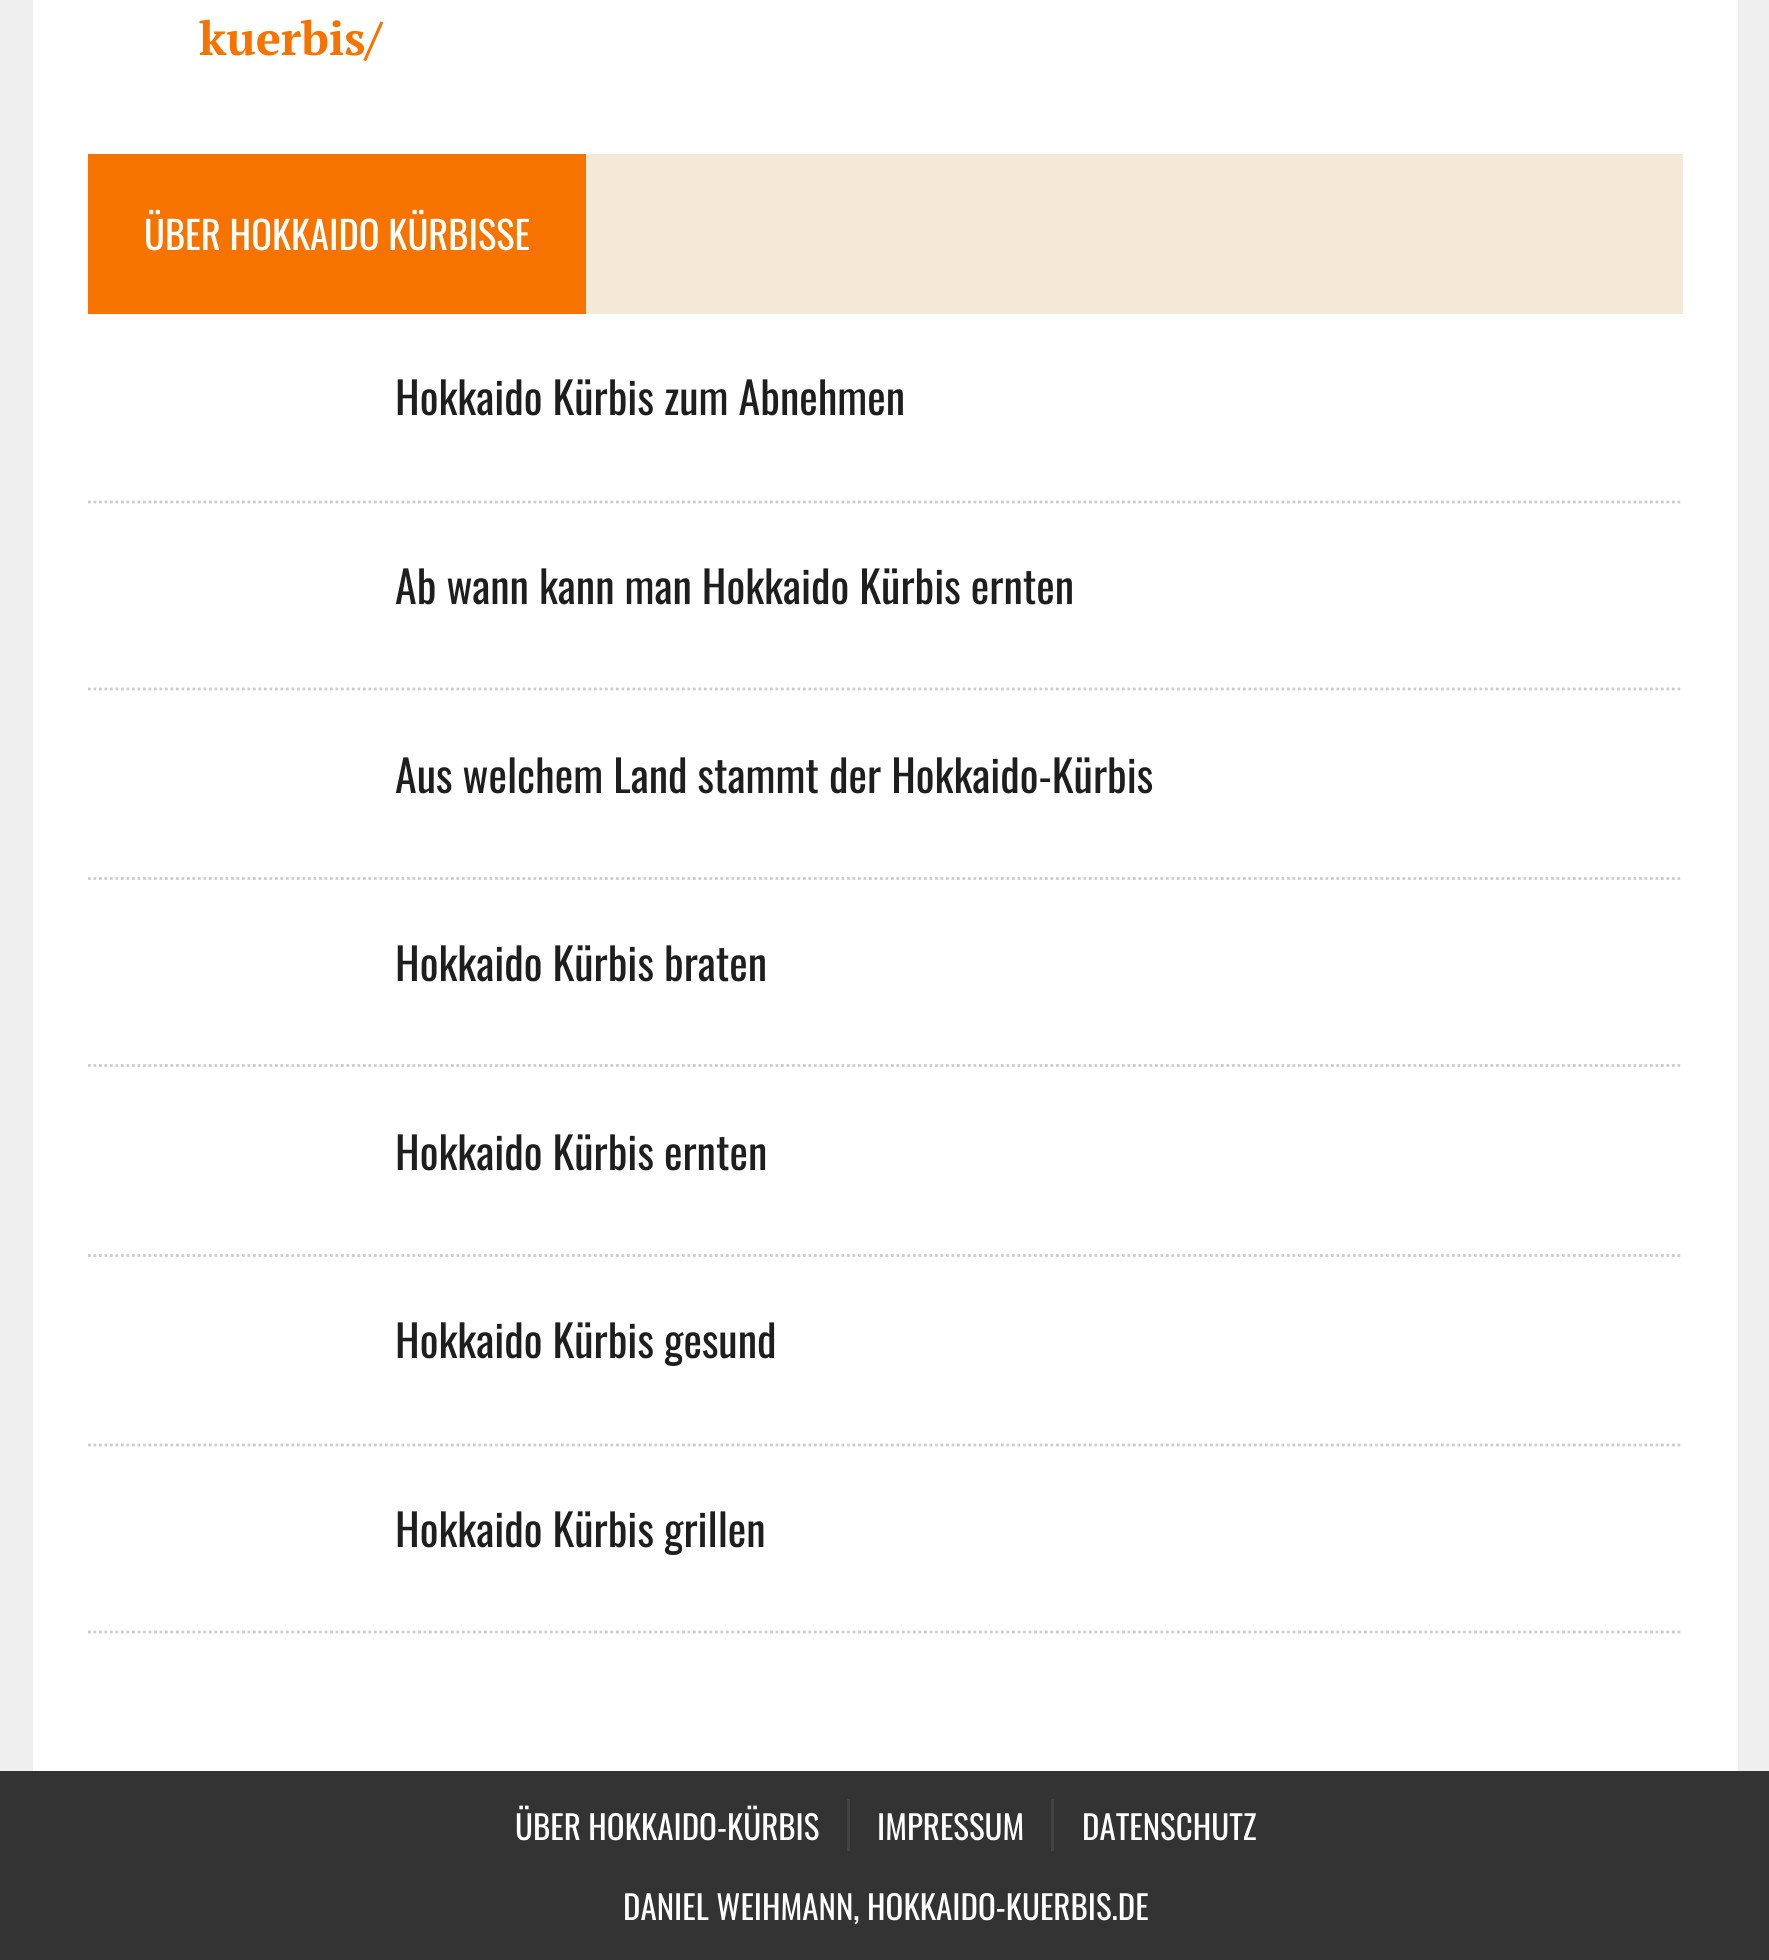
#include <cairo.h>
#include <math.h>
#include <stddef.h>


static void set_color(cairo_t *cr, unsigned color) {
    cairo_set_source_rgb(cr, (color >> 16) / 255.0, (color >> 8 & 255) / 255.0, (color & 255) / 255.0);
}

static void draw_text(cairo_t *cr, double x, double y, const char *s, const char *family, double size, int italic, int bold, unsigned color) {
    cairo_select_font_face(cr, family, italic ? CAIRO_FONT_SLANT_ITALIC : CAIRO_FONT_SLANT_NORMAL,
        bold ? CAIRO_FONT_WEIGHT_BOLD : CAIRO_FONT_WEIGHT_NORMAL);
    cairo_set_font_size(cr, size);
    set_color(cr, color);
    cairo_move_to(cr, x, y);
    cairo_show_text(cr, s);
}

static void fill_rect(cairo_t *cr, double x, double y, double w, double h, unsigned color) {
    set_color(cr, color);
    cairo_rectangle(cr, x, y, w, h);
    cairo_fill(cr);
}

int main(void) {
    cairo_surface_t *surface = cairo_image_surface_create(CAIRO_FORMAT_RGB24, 1769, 1960);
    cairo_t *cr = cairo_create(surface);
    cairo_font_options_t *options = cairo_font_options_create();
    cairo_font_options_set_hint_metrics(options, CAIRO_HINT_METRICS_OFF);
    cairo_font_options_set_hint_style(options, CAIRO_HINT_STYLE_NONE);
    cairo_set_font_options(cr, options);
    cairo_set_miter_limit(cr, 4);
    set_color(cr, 0xEFEFEF);
    cairo_paint(cr);
    fill_rect(cr, 33, 0, 1705, 1771, 0xFFFFFF);
    draw_text(cr, 199, 55, "kuerbis/", "PT Serif", 47, 0, 1, 0xF77300);
    fill_rect(cr, 586, 154, 1097, 160, 0xF4E9D7);
    fill_rect(cr, 88, 154, 498, 160, 0xF77300);
    draw_text(cr, 144, 250, "ÜBER HOKKAIDO KÜRBISSE", "Oswald", 38.5, 0, 0, 0xFFFFFF);
    draw_text(cr, 395, 415, "Hokkaido Kürbis zum Abnehmen", "Oswald", 44, 0, 0, 0x1F1E1E);
    cairo_new_path(cr);
    cairo_move_to(cr, 88, 502);
    cairo_line_to(cr, 1683, 502);
    set_color(cr, 0xCDCDCD);
    cairo_set_line_width(cr, 2.8);
    cairo_set_dash(cr, (double[]){2.75, 2.75}, 2, 0);
    cairo_stroke(cr);
    draw_text(cr, 395, 604, "Ab wann kann man Hokkaido Kürbis ernten", "Oswald", 44, 0, 0, 0x1F1E1E);
    cairo_new_path(cr);
    cairo_move_to(cr, 88, 689);
    cairo_line_to(cr, 1683, 689);
    set_color(cr, 0xCDCDCD);
    cairo_stroke(cr);
    draw_text(cr, 395, 793, "Aus welchem Land stammt der Hokkaido-Kürbis", "Oswald", 44, 0, 0, 0x1F1E1E);
    cairo_new_path(cr);
    cairo_move_to(cr, 88, 878.5);
    cairo_line_to(cr, 1683, 878.5);
    set_color(cr, 0xCDCDCD);
    cairo_stroke(cr);
    draw_text(cr, 395, 981, "Hokkaido Kürbis braten", "Oswald", 44, 0, 0, 0x1F1E1E);
    cairo_new_path(cr);
    cairo_move_to(cr, 88, 1065.5);
    cairo_line_to(cr, 1683, 1065.5);
    set_color(cr, 0xCDCDCD);
    cairo_stroke(cr);
    draw_text(cr, 395, 1170, "Hokkaido Kürbis ernten", "Oswald", 44, 0, 0, 0x1F1E1E);
    cairo_new_path(cr);
    cairo_move_to(cr, 88, 1255.5);
    cairo_line_to(cr, 1683, 1255.5);
    set_color(cr, 0xCDCDCD);
    cairo_stroke(cr);
    draw_text(cr, 395, 1358, "Hokkaido Kürbis gesund", "Oswald", 44, 0, 0, 0x1F1E1E);
    cairo_new_path(cr);
    cairo_move_to(cr, 88, 1445);
    cairo_line_to(cr, 1683, 1445);
    set_color(cr, 0xCDCDCD);
    cairo_stroke(cr);
    draw_text(cr, 395, 1547, "Hokkaido Kürbis grillen", "Oswald", 44, 0, 0, 0x1F1E1E);
    cairo_new_path(cr);
    cairo_move_to(cr, 88, 1632);
    cairo_line_to(cr, 1683, 1632);
    set_color(cr, 0xCDCDCD);
    cairo_stroke(cr);
    fill_rect(cr, 0, 1771, 1769, 189, 0x333333);
    draw_text(cr, 515, 1840, "ÜBER HOKKAIDO-KÜRBIS", "Oswald", 33, 0, 0, 0xFFFFFF);
    fill_rect(cr, 847, 1799, 3, 52, 0x424242);
    draw_text(cr, 877, 1840, "IMPRESSUM", "Oswald", 33, 0, 0, 0xFFFFFF);
    fill_rect(cr, 1051, 1799, 3, 52, 0x424242);
    draw_text(cr, 1082, 1840, "DATENSCHUTZ", "Oswald", 33, 0, 0, 0xFFFFFF);
    draw_text(cr, 623, 1920, "DANIEL WEIHMANN, HOKKAIDO-KUERBIS.DE", "Oswald", 33, 0, 0, 0xFFFFFF);
    cairo_surface_write_to_png(surface, "output.png");
    cairo_font_options_destroy(options);
    cairo_destroy(cr);
    cairo_surface_destroy(surface);
    return 0;
}
